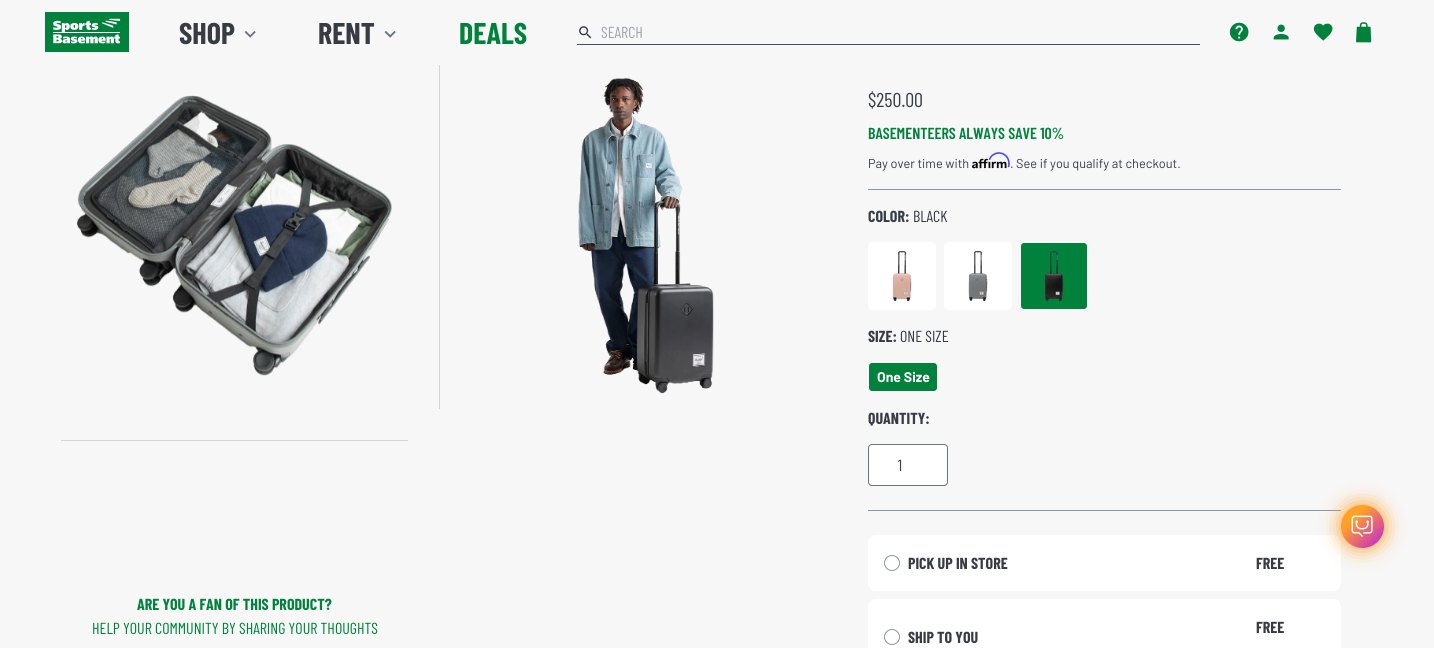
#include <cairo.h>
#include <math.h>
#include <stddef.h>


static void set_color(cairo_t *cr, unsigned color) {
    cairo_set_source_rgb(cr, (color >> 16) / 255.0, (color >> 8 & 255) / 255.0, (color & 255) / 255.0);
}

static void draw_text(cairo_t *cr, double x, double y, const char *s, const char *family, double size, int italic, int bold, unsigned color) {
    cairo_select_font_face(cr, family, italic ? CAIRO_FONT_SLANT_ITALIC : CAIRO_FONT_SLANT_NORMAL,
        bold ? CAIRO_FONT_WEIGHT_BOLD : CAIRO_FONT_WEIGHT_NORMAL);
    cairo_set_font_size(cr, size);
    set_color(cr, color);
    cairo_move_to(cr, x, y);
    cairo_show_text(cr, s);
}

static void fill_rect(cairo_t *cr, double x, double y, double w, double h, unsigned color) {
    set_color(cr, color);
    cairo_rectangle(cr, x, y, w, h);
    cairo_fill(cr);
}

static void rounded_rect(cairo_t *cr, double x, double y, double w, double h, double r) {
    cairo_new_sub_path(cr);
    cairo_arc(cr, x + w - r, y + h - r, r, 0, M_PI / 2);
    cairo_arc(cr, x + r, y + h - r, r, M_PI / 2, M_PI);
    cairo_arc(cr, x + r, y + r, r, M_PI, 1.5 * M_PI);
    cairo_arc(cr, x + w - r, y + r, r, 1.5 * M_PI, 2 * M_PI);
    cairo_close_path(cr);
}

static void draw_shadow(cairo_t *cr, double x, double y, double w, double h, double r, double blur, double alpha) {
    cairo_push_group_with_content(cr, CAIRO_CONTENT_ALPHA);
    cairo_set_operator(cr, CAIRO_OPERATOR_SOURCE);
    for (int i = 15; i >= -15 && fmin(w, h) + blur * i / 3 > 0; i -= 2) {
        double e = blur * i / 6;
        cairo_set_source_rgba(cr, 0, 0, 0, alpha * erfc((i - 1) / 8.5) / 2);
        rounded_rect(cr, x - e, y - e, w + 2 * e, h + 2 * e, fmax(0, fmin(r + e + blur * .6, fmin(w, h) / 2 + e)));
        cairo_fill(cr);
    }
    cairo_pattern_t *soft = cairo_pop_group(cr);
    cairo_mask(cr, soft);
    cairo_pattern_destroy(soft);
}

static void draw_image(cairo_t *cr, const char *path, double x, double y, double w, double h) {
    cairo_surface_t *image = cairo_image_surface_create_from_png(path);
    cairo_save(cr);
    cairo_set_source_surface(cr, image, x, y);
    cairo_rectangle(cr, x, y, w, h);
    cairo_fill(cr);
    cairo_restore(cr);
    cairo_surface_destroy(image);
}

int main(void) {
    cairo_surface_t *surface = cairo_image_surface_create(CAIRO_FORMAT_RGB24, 1434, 648);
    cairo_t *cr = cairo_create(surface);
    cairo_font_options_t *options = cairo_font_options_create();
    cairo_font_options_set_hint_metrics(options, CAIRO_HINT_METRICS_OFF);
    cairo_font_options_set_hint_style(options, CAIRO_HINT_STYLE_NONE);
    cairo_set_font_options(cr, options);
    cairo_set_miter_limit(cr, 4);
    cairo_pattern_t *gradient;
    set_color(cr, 0xF7F7F7);
    cairo_paint(cr);
    fill_rect(cr, 439, 62, 1, 347, 0xD1D5DB);
    fill_rect(cr, 439, 62, 1, 3, 0xF7F7F7);
    draw_image(cr, "assets/img1.png", 45, 12, 84, 40);
    draw_text(cr, 179, 44, "SHOP", "Barlow Condensed", 30, 0, 1, 0x363B44);
    draw_image(cr, "assets/img2.png", 244, 31, 12, 7);
    draw_text(cr, 318, 44, "RENT", "Barlow Condensed", 30, 0, 1, 0x363B44);
    draw_image(cr, "assets/img2.png", 384, 31, 12, 7);
    draw_text(cr, 459, 44, "DEALS", "Barlow Condensed", 30, 0, 1, 0x00823D);
    draw_image(cr, "assets/img3.png", 579, 26, 13, 13);
    fill_rect(cr, 577, 44, 623, 1, 0x474E5D);
    draw_text(cr, 601, 38, "SEARCH", "Barlow Condensed", 16, 0, 0, 0x9CA3AF);
    draw_image(cr, "assets/img4.png", 1229, 22, 20, 20);
    draw_image(cr, "assets/img5.png", 1273, 24, 16, 16);
    draw_image(cr, "assets/img6.png", 1313, 23, 20, 18);
    draw_image(cr, "assets/img7.png", 1356, 22, 16, 21);
    draw_image(cr, "assets/img8.png", 77, 95, 315, 281);
    fill_rect(cr, 61, 440, 347, 1, 0xD1D5DB);
    draw_image(cr, "assets/img9.png", 578, 77, 136, 317);
    draw_text(cr, 137, 610, "ARE YOU A FAN OF THIS PRODUCT?", "Barlow Condensed", 16, 0, 1, 0x00823D);
    draw_text(cr, 92, 634, "HELP YOUR COMMUNITY BY SHARING YOUR THOUGHTS", "Barlow Condensed", 16, 0, 0, 0x00823D);
    draw_text(cr, 868, 107, "$250.00", "Barlow Condensed", 20, 0, 0, 0x363B44);
    draw_text(cr, 868, 139, "BASEMENTEERS ALWAYS SAVE 10%", "Barlow Condensed SemiBold", 16, 0, 0, 0x00823D);
    draw_text(cr, 868, 168, "Pay over time with", "Barlow", 12.75, 0, 0, 0x363B44);
    draw_image(cr, "assets/img11.png", 972, 158, 35, 11);
    draw_image(cr, "assets/img10.png", 988, 152, 22, 16);
    draw_text(cr, 1010, 168, ". See if you qualify at checkout.", "Barlow", 12.75, 0, 0, 0x363B44);
    fill_rect(cr, 868, 189, 473, 1, 0x8B95A5);
    draw_text(cr, 868, 222, "COLOR:", "Barlow Condensed", 16, 0, 1, 0x363B44);
    draw_text(cr, 913, 222, "BLACK", "Barlow Condensed", 16, 0, 0, 0x363B44);
    set_color(cr, 0xFFFFFF);
    rounded_rect(cr, 868, 242, 68, 68, 4);
    cairo_fill(cr);
    draw_image(cr, "assets/img12.png", 892, 251, 20, 50);
    rounded_rect(cr, 944, 242, 68, 68, 4);
    cairo_fill(cr);
    draw_image(cr, "assets/img13.png", 968, 251, 20, 50);
    set_color(cr, 0x00823D);
    rounded_rect(cr, 1020.5, 242.5, 67, 67, 3.5);
    cairo_fill_preserve(cr);
    set_color(cr, 0xFFFFFF);
    cairo_set_line_width(cr, 1);
    cairo_stroke(cr);
    draw_image(cr, "assets/img14.png", 1044, 251, 20, 50);
    draw_text(cr, 868, 342, "SIZE:", "Barlow Condensed", 16, 0, 1, 0x363B44);
    draw_text(cr, 900, 342, "ONE SIZE", "Barlow Condensed", 16, 0, 0, 0x363B44);
    set_color(cr, 0x00823D);
    rounded_rect(cr, 868.5, 362.5, 69, 29, 3.5);
    cairo_fill_preserve(cr);
    set_color(cr, 0xFFFFFF);
    cairo_stroke(cr);
    draw_text(cr, 877, 382, "One Size", "Barlow", 14, 0, 1, 0xFFFFFF);
    draw_text(cr, 868, 424, "QUANTITY:", "Barlow Condensed", 16, 0, 1, 0x363B44);
    set_color(cr, 0xFFFFFF);
    rounded_rect(cr, 868.5, 444.5, 79, 41, 3.5);
    cairo_fill_preserve(cr);
    set_color(cr, 0x677284);
    cairo_stroke(cr);
    draw_text(cr, 897, 471, "1", "Barlow", 16, 0, 0, 0x363B44);
    fill_rect(cr, 868, 510, 473, 1, 0x8B95A5);
    set_color(cr, 0xFFFFFF);
    rounded_rect(cr, 868, 535, 473, 56, 8);
    cairo_fill(cr);
    cairo_arc(cr, 892, 563, 7.5, 0, 2 * M_PI);
    set_color(cr, 0x8B95A5);
    cairo_stroke(cr);
    draw_text(cr, 908, 569, "PICK UP IN STORE", "Barlow Condensed", 16, 0, 1, 0x363B44);
    draw_text(cr, 1256, 569, "FREE", "Barlow Condensed", 16, 0, 1, 0x363B44);
    set_color(cr, 0xFFFFFF);
    rounded_rect(cr, 868, 599, 473, 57, 8);
    cairo_fill(cr);
    draw_text(cr, 1256, 633, "FREE", "Barlow Condensed", 16, 0, 1, 0x363B44);
    cairo_new_path(cr);
    cairo_arc(cr, 892, 637, 7.5, 0, 2 * M_PI);
    set_color(cr, 0x8B95A5);
    cairo_stroke(cr);
    draw_text(cr, 908, 643, "SHIP TO YOU", "Barlow Condensed", 16, 0, 1, 0x363B44);
    set_color(cr, 0xFFA028);
    draw_shadow(cr, 1341, 505, 43, 43, 21.5, 10, 1);
    gradient = cairo_pattern_create_linear(1341, 505, 1384, 548);
    cairo_pattern_add_color_stop_rgba(gradient, 0.3, 1, 0.627, 0.157, 1);
    cairo_pattern_add_color_stop_rgba(gradient, 1, 0.761, 0.114, 0.875, 1);
    cairo_set_source(cr, gradient);
    cairo_pattern_destroy(gradient);
    cairo_arc(cr, 1362.5, 526.5, 21.5, 0, 2 * M_PI);
    cairo_fill(cr);
    draw_image(cr, "assets/img15.png", 1351, 515, 22, 22);
    cairo_surface_write_to_png(surface, "output.png");
    cairo_font_options_destroy(options);
    cairo_destroy(cr);
    cairo_surface_destroy(surface);
    return 0;
}
